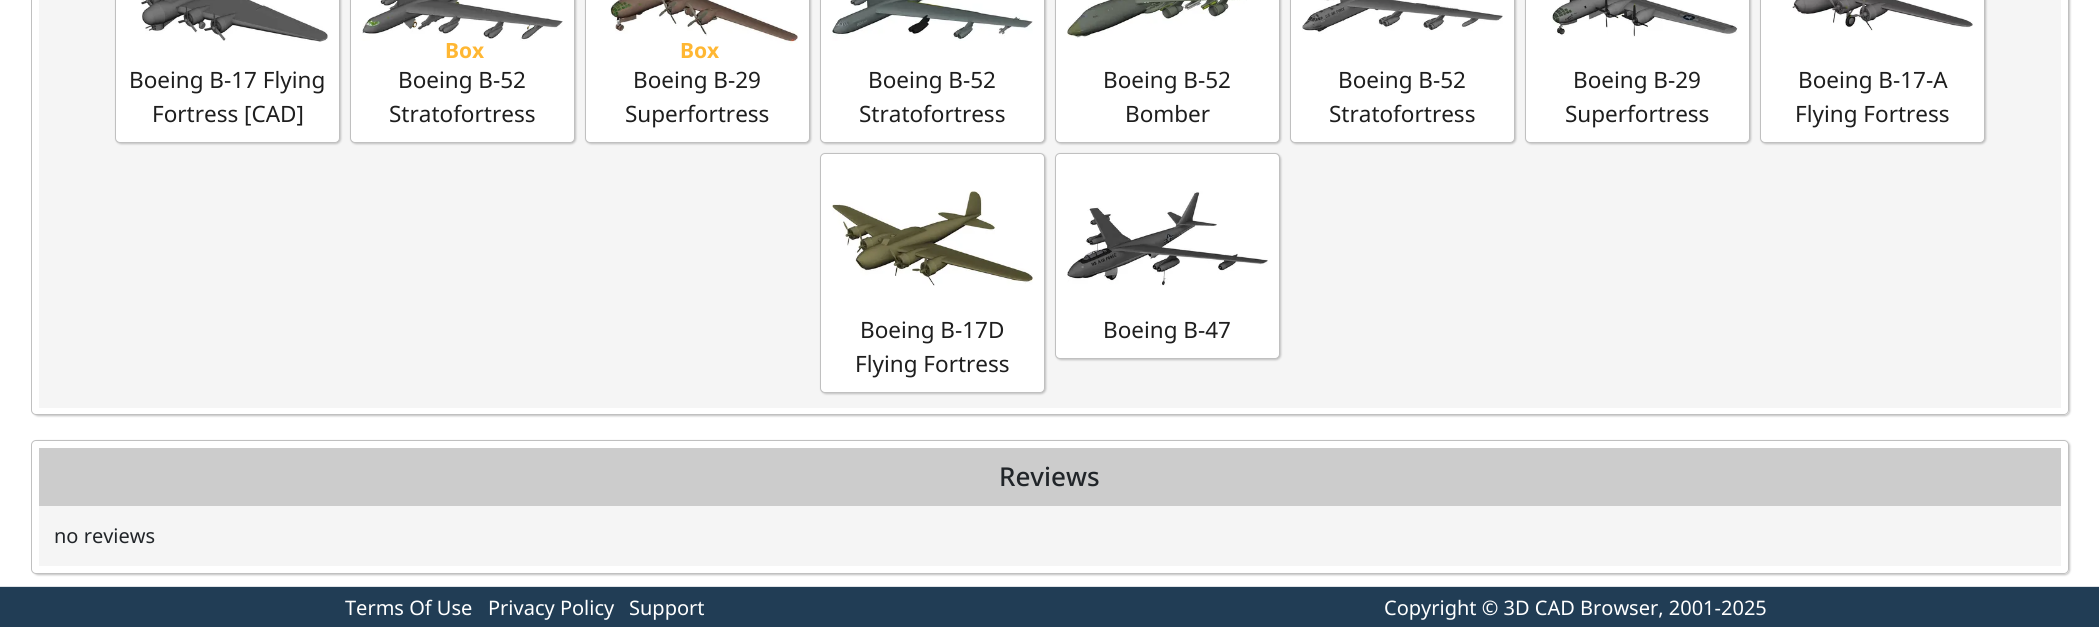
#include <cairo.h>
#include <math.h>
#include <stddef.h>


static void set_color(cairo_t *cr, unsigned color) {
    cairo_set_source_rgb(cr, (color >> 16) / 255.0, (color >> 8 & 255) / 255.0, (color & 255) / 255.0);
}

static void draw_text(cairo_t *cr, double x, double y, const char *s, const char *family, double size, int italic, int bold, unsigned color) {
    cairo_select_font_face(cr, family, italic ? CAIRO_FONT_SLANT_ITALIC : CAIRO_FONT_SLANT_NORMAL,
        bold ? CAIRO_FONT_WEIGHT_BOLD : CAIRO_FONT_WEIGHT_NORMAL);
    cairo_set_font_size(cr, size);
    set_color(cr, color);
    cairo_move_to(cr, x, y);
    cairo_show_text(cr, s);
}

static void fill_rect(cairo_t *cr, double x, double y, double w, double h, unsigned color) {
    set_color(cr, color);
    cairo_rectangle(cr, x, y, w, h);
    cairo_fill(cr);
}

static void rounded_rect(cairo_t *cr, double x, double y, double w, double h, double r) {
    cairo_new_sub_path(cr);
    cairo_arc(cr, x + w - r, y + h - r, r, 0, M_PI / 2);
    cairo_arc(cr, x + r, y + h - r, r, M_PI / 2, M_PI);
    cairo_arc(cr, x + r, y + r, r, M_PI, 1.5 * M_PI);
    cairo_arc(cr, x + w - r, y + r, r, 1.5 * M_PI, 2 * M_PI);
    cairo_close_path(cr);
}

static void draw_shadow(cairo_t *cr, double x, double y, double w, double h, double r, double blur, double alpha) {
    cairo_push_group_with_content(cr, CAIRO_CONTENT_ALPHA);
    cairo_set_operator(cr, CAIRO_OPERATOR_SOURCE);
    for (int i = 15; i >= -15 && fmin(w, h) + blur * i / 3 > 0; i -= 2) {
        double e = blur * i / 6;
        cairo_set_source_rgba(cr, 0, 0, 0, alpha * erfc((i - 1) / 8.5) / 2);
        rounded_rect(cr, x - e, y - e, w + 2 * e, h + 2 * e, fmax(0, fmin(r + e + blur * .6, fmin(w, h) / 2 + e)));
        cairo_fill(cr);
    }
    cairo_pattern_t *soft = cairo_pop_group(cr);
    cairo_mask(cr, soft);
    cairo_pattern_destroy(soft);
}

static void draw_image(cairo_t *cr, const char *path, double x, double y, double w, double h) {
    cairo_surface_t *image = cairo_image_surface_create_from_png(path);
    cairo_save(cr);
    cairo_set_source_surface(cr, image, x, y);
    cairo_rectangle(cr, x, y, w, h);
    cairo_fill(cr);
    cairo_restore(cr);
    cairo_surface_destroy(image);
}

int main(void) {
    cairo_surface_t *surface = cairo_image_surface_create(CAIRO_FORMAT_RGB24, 2099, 627);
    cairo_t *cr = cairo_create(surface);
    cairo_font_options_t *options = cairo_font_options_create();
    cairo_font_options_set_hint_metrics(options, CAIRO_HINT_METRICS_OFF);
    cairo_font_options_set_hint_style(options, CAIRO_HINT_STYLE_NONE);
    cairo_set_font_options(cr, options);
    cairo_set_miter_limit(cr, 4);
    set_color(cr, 0xFFFFFF);
    cairo_paint(cr);
    cairo_save(cr);
    cairo_set_fill_rule(cr, CAIRO_FILL_RULE_EVEN_ODD);
    cairo_new_path(cr);
    cairo_move_to(cr, 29, 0);
    cairo_line_to(cr, 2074, 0);
    cairo_line_to(cr, 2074, 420);
    cairo_line_to(cr, 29, 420);
    cairo_close_path(cr);
    cairo_move_to(cr, 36, -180);
    cairo_line_to(cr, 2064, -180);
    cairo_curve_to(cr, 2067, -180, 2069, -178, 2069, -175);
    cairo_line_to(cr, 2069, 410);
    cairo_curve_to(cr, 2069, 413, 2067, 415, 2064, 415);
    cairo_line_to(cr, 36, 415);
    cairo_curve_to(cr, 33, 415, 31, 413, 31, 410);
    cairo_line_to(cr, 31, -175);
    cairo_curve_to(cr, 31, -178, 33, -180, 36, -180);
    cairo_close_path(cr);
    cairo_clip(cr);
    set_color(cr, 0xC0C0C0);
    draw_shadow(cr, 33, -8, 2037, 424, 5, 1, 1);
    cairo_restore(cr);
    rounded_rect(cr, 31.5, -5.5, 2037, 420, 4.5);
    set_color(cr, 0xC0C0C0);
    cairo_set_line_width(cr, 1);
    cairo_stroke(cr);
    fill_rect(cr, 39, 0, 2022, 408, 0xF5F5F5);
    set_color(cr, 0xC0C0C0);
    draw_shadow(cr, 116, -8, 225, 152, 5, 1, 1);
    set_color(cr, 0xFFFFFF);
    rounded_rect(cr, 115.5, -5.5, 224, 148, 4.5);
    cairo_fill_preserve(cr);
    set_color(cr, 0xC0C0C0);
    cairo_stroke(cr);
    draw_image(cr, "assets/img1.png", 141, 0, 187, 42);
    draw_text(cr, 129, 88, "Boeing B-17 Flying", "Noto Sans", 22.5, 0, 0, 0x1E1E1E);
    draw_text(cr, 152, 122, "Fortress [CAD]", "Noto Sans", 22.5, 0, 0, 0x1E1E1E);
    set_color(cr, 0xC0C0C0);
    draw_shadow(cr, 351, -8, 225, 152, 5, 1, 1);
    set_color(cr, 0xFFFFFF);
    rounded_rect(cr, 350.5, -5.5, 224, 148, 4.5);
    cairo_fill_preserve(cr);
    set_color(cr, 0xC0C0C0);
    cairo_stroke(cr);
    draw_image(cr, "assets/img2.png", 362, 0, 201, 41);
    cairo_set_source_rgba(cr, 1, 1, 1, 0.8);
    rounded_rect(cr, 444, 34, 42, 34, 5);
    cairo_fill(cr);
    draw_text(cr, 445, 58, "Box", "Noto Sans", 21, 0, 1, 0xFFB733);
    draw_text(cr, 398, 88, "Boeing B-52", "Noto Sans", 22.5, 0, 0, 0x1E1E1E);
    draw_text(cr, 389, 122, "Stratofortress", "Noto Sans", 22.5, 0, 0, 0x1E1E1E);
    set_color(cr, 0xC0C0C0);
    draw_shadow(cr, 586, -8, 225, 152, 5, 1, 1);
    set_color(cr, 0xFFFFFF);
    rounded_rect(cr, 585.5, -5.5, 224, 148, 4.5);
    cairo_fill_preserve(cr);
    set_color(cr, 0xC0C0C0);
    cairo_stroke(cr);
    draw_image(cr, "assets/img3.png", 610, 0, 188, 44);
    cairo_set_source_rgba(cr, 1, 1, 1, 0.8);
    rounded_rect(cr, 679, 34, 42, 34, 5);
    cairo_fill(cr);
    draw_text(cr, 680, 58, "Box", "Noto Sans", 21, 0, 1, 0xFFB733);
    draw_text(cr, 633, 88, "Boeing B-29", "Noto Sans", 22.5, 0, 0, 0x1E1E1E);
    draw_text(cr, 625, 122, "Superfortress", "Noto Sans", 22.5, 0, 0, 0x1E1E1E);
    set_color(cr, 0xC0C0C0);
    draw_shadow(cr, 821, -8, 225, 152, 5, 1, 1);
    set_color(cr, 0xFFFFFF);
    rounded_rect(cr, 820.5, -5.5, 224, 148, 4.5);
    cairo_fill_preserve(cr);
    set_color(cr, 0xC0C0C0);
    cairo_stroke(cr);
    draw_image(cr, "assets/img4.png", 832, 0, 201, 41);
    draw_text(cr, 868, 88, "Boeing B-52", "Noto Sans", 22.5, 0, 0, 0x1E1E1E);
    draw_text(cr, 859, 122, "Stratofortress", "Noto Sans", 22.5, 0, 0, 0x1E1E1E);
    set_color(cr, 0xC0C0C0);
    draw_shadow(cr, 1056, -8, 225, 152, 5, 1, 1);
    set_color(cr, 0xFFFFFF);
    rounded_rect(cr, 1055.5, -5.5, 224, 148, 4.5);
    cairo_fill_preserve(cr);
    set_color(cr, 0xC0C0C0);
    cairo_stroke(cr);
    draw_image(cr, "assets/img5.png", 1067, 0, 180, 38);
    draw_text(cr, 1103, 88, "Boeing B-52", "Noto Sans", 22.5, 0, 0, 0x1E1E1E);
    draw_text(cr, 1125, 122, "Bomber", "Noto Sans", 22.5, 0, 0, 0x1E1E1E);
    set_color(cr, 0xC0C0C0);
    draw_shadow(cr, 1291, -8, 225, 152, 5, 1, 1);
    set_color(cr, 0xFFFFFF);
    rounded_rect(cr, 1290.5, -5.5, 224, 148, 4.5);
    cairo_fill_preserve(cr);
    set_color(cr, 0xC0C0C0);
    cairo_stroke(cr);
    draw_image(cr, "assets/img6.png", 1302, 0, 201, 34);
    draw_text(cr, 1338, 88, "Boeing B-52", "Noto Sans", 22.5, 0, 0, 0x1E1E1E);
    draw_text(cr, 1329, 122, "Stratofortress", "Noto Sans", 22.5, 0, 0, 0x1E1E1E);
    set_color(cr, 0xC0C0C0);
    draw_shadow(cr, 1526, -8, 225, 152, 5, 1, 1);
    set_color(cr, 0xFFFFFF);
    rounded_rect(cr, 1525.5, -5.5, 224, 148, 4.5);
    cairo_fill_preserve(cr);
    set_color(cr, 0xC0C0C0);
    cairo_stroke(cr);
    draw_image(cr, "assets/img7.png", 1552, 0, 186, 37);
    draw_text(cr, 1573, 88, "Boeing B-29", "Noto Sans", 22.5, 0, 0, 0x1E1E1E);
    draw_text(cr, 1565, 122, "Superfortress", "Noto Sans", 22.5, 0, 0, 0x1E1E1E);
    set_color(cr, 0xC0C0C0);
    draw_shadow(cr, 1761, -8, 225, 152, 5, 1, 1);
    set_color(cr, 0xFFFFFF);
    rounded_rect(cr, 1760.5, -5.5, 224, 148, 4.5);
    cairo_fill_preserve(cr);
    set_color(cr, 0xC0C0C0);
    cairo_stroke(cr);
    draw_image(cr, "assets/img8.png", 1792, 0, 181, 31);
    draw_text(cr, 1798, 88, "Boeing B-17-A", "Noto Sans", 22.5, 0, 0, 0x1E1E1E);
    draw_text(cr, 1795, 122, "Flying Fortress", "Noto Sans", 22.5, 0, 0, 0x1E1E1E);
    set_color(cr, 0xC0C0C0);
    draw_shadow(cr, 821, 154, 225, 240, 5, 1, 1);
    set_color(cr, 0xFFFFFF);
    rounded_rect(cr, 820.5, 153.5, 224, 239, 4.5);
    cairo_fill_preserve(cr);
    set_color(cr, 0xC0C0C0);
    cairo_stroke(cr);
    draw_image(cr, "assets/img9.png", 832, 190, 201, 96);
    draw_text(cr, 860, 338, "Boeing B-17D", "Noto Sans", 22.5, 0, 0, 0x1E1E1E);
    draw_text(cr, 855, 372, "Flying Fortress", "Noto Sans", 22.5, 0, 0, 0x1E1E1E);
    set_color(cr, 0xC0C0C0);
    draw_shadow(cr, 1056, 154, 225, 206, 5, 1, 1);
    set_color(cr, 0xFFFFFF);
    rounded_rect(cr, 1055.5, 153.5, 224, 205, 4.5);
    cairo_fill_preserve(cr);
    set_color(cr, 0xC0C0C0);
    cairo_stroke(cr);
    draw_image(cr, "assets/img10.png", 1067, 191, 201, 95);
    draw_text(cr, 1103, 338, "Boeing B-47", "Noto Sans", 22.5, 0, 0, 0x1E1E1E);
    cairo_save(cr);
    cairo_set_fill_rule(cr, CAIRO_FILL_RULE_EVEN_ODD);
    cairo_new_path(cr);
    cairo_move_to(cr, 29, 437);
    cairo_line_to(cr, 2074, 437);
    cairo_line_to(cr, 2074, 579);
    cairo_line_to(cr, 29, 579);
    cairo_close_path(cr);
    cairo_move_to(cr, 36, 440);
    cairo_line_to(cr, 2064, 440);
    cairo_curve_to(cr, 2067, 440, 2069, 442, 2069, 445);
    cairo_line_to(cr, 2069, 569);
    cairo_curve_to(cr, 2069, 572, 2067, 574, 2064, 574);
    cairo_line_to(cr, 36, 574);
    cairo_curve_to(cr, 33, 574, 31, 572, 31, 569);
    cairo_line_to(cr, 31, 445);
    cairo_curve_to(cr, 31, 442, 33, 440, 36, 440);
    cairo_close_path(cr);
    cairo_clip(cr);
    set_color(cr, 0xC0C0C0);
    draw_shadow(cr, 33, 441, 2037, 134, 5, 1, 1);
    cairo_restore(cr);
    rounded_rect(cr, 31.5, 440.5, 2037, 133, 4.5);
    set_color(cr, 0xC0C0C0);
    cairo_stroke(cr);
    fill_rect(cr, 39, 448, 2022, 58, 0xCCCCCC);
    draw_text(cr, 999, 486, "Reviews", "Noto Sans Medium", 26, 0, 0, 0x212529);
    fill_rect(cr, 39, 506, 2022, 60, 0xF5F5F5);
    draw_text(cr, 54, 543, "no reviews", "Noto Sans", 20, 0, 0, 0x212529);
    fill_rect(cr, 0, 587, 2099, 40, 0x213D55);
    fill_rect(cr, 0, 586, 2099, 1, 0xDEE2E6);
    draw_text(cr, 345, 615, "Terms Of Use", "Noto Sans", 20, 0, 0, 0xFFFFFF);
    draw_text(cr, 488, 615, "Privacy Policy", "Noto Sans", 20, 0, 0, 0xFFFFFF);
    draw_text(cr, 629, 615, "Support", "Noto Sans", 20, 0, 0, 0xFFFFFF);
    draw_text(cr, 1384, 615, "Copyright © 3D CAD Browser, 2001-2025", "Noto Sans", 20, 0, 0, 0xFFFFFF);
    cairo_surface_write_to_png(surface, "output.png");
    cairo_font_options_destroy(options);
    cairo_destroy(cr);
    cairo_surface_destroy(surface);
    return 0;
}
